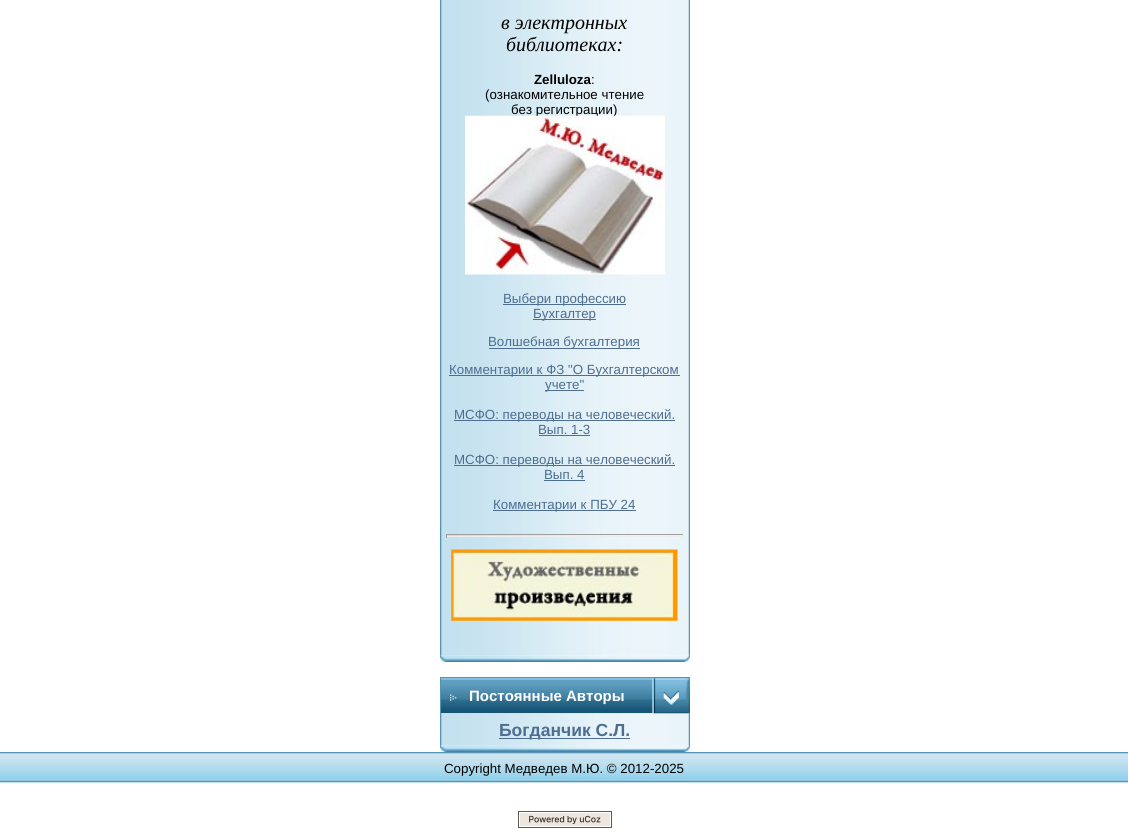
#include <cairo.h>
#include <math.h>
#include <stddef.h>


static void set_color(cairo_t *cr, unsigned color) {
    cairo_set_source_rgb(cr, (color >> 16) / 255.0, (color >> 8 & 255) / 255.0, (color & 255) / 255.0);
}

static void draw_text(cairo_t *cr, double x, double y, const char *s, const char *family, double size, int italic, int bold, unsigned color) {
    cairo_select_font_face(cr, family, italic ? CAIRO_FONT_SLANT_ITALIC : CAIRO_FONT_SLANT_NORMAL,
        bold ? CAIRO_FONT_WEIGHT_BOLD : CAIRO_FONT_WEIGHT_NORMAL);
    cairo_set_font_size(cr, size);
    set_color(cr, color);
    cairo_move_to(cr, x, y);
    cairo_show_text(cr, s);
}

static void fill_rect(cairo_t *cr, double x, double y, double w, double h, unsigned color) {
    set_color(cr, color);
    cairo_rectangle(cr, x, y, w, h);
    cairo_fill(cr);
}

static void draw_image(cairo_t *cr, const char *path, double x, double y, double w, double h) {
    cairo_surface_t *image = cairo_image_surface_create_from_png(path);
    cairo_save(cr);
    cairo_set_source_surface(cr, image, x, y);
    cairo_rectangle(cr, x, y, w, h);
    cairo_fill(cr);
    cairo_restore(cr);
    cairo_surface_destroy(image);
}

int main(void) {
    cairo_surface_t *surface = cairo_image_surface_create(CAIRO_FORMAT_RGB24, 1128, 831);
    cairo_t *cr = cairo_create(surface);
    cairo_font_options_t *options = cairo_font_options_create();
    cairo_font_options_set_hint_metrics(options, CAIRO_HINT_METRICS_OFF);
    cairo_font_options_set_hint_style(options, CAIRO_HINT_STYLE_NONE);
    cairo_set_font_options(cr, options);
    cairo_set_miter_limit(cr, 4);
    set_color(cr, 0xFFFFFF);
    cairo_paint(cr);
    draw_image(cr, "assets/img1.png", 440, 0, 250, 656);
    draw_text(cr, 501, 29, "в электронных", "Liberation Serif", 20, 1, 0, 0x000000);
    draw_text(cr, 506, 51, "библиотеках:", "Liberation Serif", 20, 1, 0, 0x000000);
    draw_text(cr, 534, 84, "Zelluloza", "Liberation Sans", 13.3, 0, 1, 0x000000);
    draw_text(cr, 591, 84, ":", "Liberation Sans", 13.3, 0, 0, 0x000000);
    draw_text(cr, 485, 99, "(ознакомительное чтение", "Liberation Sans", 13.3, 0, 0, 0x000000);
    draw_text(cr, 511, 114, "без регистрации)", "Liberation Sans", 13.3, 0, 0, 0x000000);
    draw_image(cr, "assets/img2.png", 465, 115, 200, 160);
    fill_rect(cr, 503, 304, 123, 1, 0x4D6D91);
    draw_text(cr, 503, 303, "Выбери профессию", "Liberation Sans", 13.3, 0, 0, 0x4D6D91);
    fill_rect(cr, 533, 319, 63, 1, 0x4D6D91);
    draw_text(cr, 533, 318, "Бухгалтер", "Liberation Sans", 13.3, 0, 0, 0x4D6D91);
    fill_rect(cr, 489, 348, 151, 1, 0x4D6D91);
    draw_text(cr, 488, 346, "Волшебная бухгалтерия", "Liberation Sans", 13.3, 0, 0, 0x4D6D91);
    fill_rect(cr, 449, 375, 231, 1, 0x4D6D91);
    draw_text(cr, 449, 374, "Комментарии к ФЗ \"О Бухгалтерском", "Liberation Sans", 13.3, 0, 0, 0x4D6D91);
    fill_rect(cr, 545, 390, 39, 1, 0x4D6D91);
    draw_text(cr, 545, 389, "учете\"", "Liberation Sans", 13.3, 0, 0, 0x4D6D91);
    fill_rect(cr, 454, 420, 221, 1, 0x4D6D91);
    draw_text(cr, 454, 419, "МСФО: переводы на человеческий.", "Liberation Sans", 13.3, 0, 0, 0x4D6D91);
    draw_text(cr, 538, 434, "Вып. 1-3", "Liberation Sans", 13.3, 0, 0, 0x4D6D91);
    fill_rect(cr, 539, 435, 51, 1, 0x4D6D91);
    fill_rect(cr, 454, 465, 221, 1, 0x4D6D91);
    draw_text(cr, 454, 464, "МСФО: переводы на человеческий.", "Liberation Sans", 13.3, 0, 0, 0x4D6D91);
    draw_text(cr, 544, 479, "Вып. 4", "Liberation Sans", 13.3, 0, 0, 0x4D6D91);
    fill_rect(cr, 544, 480, 41, 1, 0x4D6D91);
    fill_rect(cr, 493, 510, 143, 1, 0x4D6D91);
    draw_text(cr, 493, 509, "Комментарии к ПБУ 24", "Liberation Sans", 13.3, 0, 0, 0x4D6D91);
    fill_rect(cr, 446, 534, 238, 1, 0x9F9F9F);
    fill_rect(cr, 683, 534, 1, 4, 0xEEEEEE);
    fill_rect(cr, 446, 536, 238, 1, 0xEEEEEE);
    fill_rect(cr, 446, 534, 1, 4, 0x9F9F9F);
    draw_image(cr, "assets/img3.png", 451, 549, 227, 72);
    draw_image(cr, "assets/img4.png", 440, 655, 250, 7);
    draw_image(cr, "assets/img5.png", 440, 677, 213, 37);
    fill_rect(cr, 440, 678, 1, 36, 0x5694B5);
    draw_image(cr, "assets/img6.png", 450, 694, 7, 7);
    draw_text(cr, 469, 701, "Постоянные Авторы", "Liberation Sans", 15, 0, 1, 0xFFFFFF);
    draw_image(cr, "assets/img7.png", 652, 677, 38, 37);
    draw_image(cr, "assets/img9.png", 440, 713, 250, 33);
    draw_image(cr, "assets/img8.png", 652, 677, 38, 37);
    fill_rect(cr, 499, 738, 131, 1, 0x4D6D91);
    draw_text(cr, 499, 736, "Богданчик С.Л.", "Liberation Sans", 17.5, 0, 1, 0x4D6D91);
    draw_image(cr, "assets/img4.png", 440, 745, 250, 7);
    fill_rect(cr, 0, 782, 1128, 1, 0xC3E1EF);
    draw_image(cr, "assets/img10.png", 0, 752, 1128, 30);
    draw_text(cr, 444, 773, "Copyright Медведев М.Ю. © 2012-2025", "Liberation Sans", 13.3, 0, 0, 0x000000);
    draw_image(cr, "assets/img11.png", 518, 811, 94, 17);
    cairo_surface_write_to_png(surface, "output.png");
    cairo_font_options_destroy(options);
    cairo_destroy(cr);
    cairo_surface_destroy(surface);
    return 0;
}
